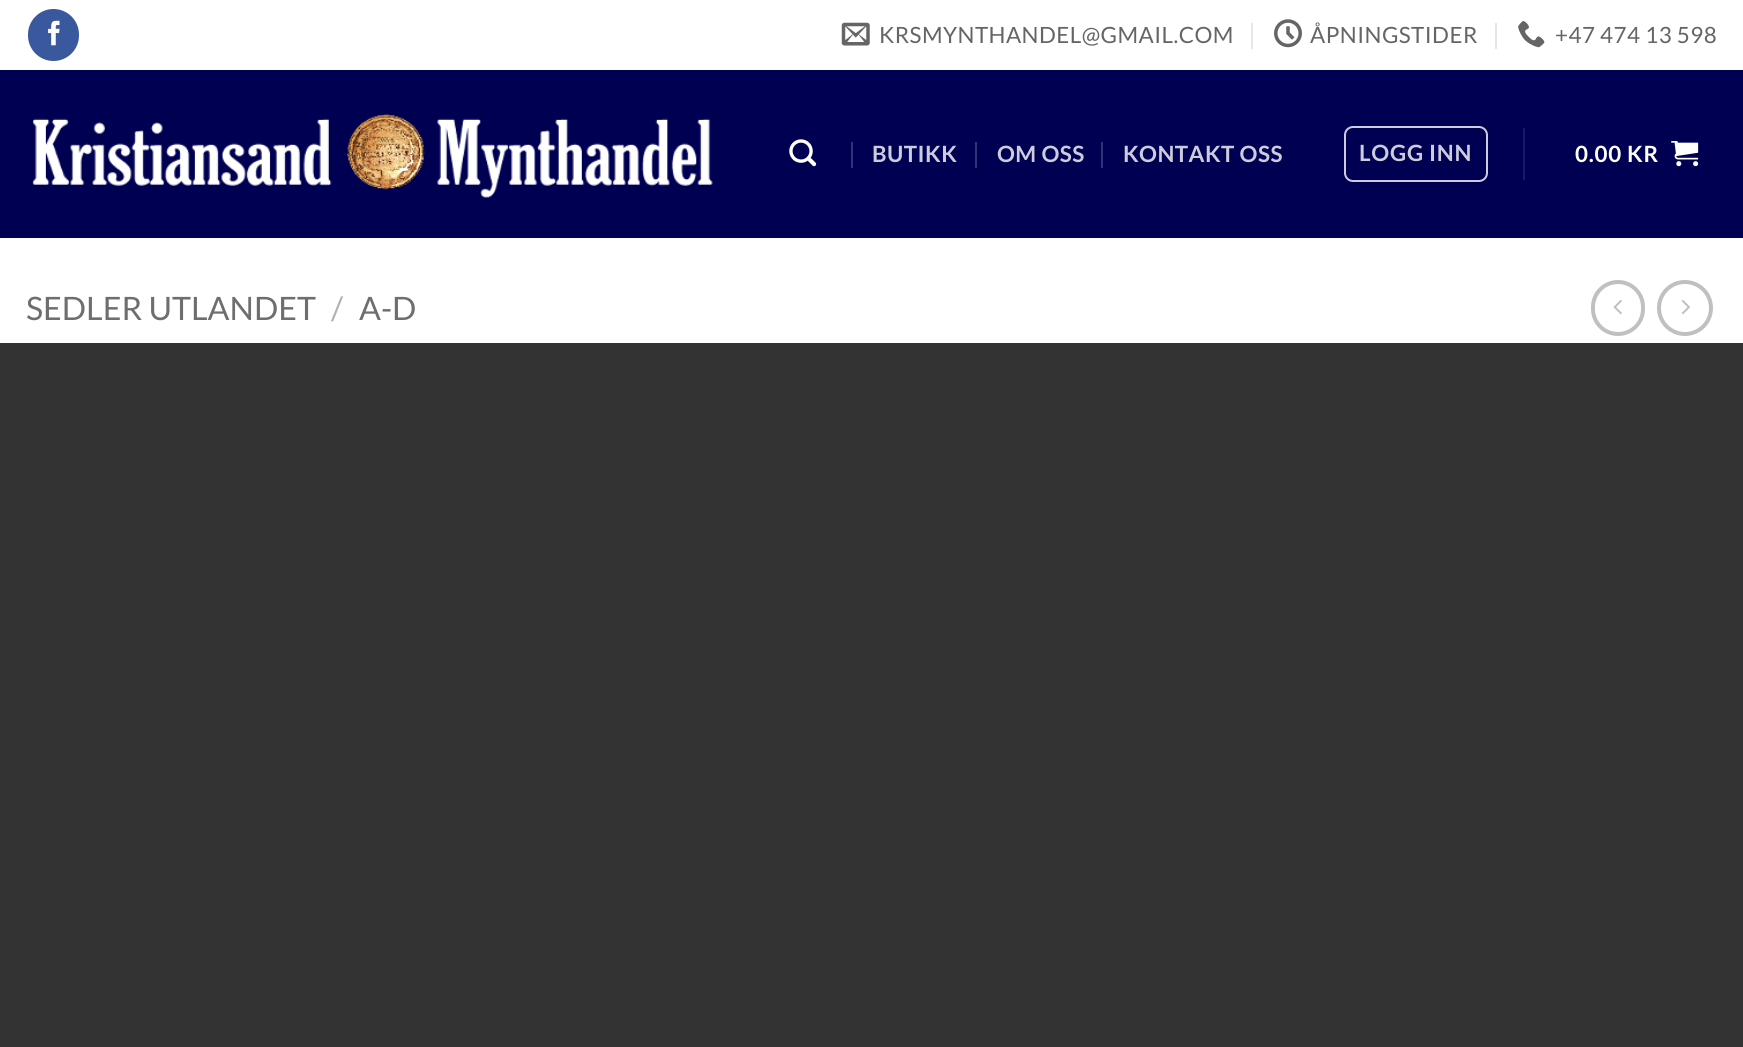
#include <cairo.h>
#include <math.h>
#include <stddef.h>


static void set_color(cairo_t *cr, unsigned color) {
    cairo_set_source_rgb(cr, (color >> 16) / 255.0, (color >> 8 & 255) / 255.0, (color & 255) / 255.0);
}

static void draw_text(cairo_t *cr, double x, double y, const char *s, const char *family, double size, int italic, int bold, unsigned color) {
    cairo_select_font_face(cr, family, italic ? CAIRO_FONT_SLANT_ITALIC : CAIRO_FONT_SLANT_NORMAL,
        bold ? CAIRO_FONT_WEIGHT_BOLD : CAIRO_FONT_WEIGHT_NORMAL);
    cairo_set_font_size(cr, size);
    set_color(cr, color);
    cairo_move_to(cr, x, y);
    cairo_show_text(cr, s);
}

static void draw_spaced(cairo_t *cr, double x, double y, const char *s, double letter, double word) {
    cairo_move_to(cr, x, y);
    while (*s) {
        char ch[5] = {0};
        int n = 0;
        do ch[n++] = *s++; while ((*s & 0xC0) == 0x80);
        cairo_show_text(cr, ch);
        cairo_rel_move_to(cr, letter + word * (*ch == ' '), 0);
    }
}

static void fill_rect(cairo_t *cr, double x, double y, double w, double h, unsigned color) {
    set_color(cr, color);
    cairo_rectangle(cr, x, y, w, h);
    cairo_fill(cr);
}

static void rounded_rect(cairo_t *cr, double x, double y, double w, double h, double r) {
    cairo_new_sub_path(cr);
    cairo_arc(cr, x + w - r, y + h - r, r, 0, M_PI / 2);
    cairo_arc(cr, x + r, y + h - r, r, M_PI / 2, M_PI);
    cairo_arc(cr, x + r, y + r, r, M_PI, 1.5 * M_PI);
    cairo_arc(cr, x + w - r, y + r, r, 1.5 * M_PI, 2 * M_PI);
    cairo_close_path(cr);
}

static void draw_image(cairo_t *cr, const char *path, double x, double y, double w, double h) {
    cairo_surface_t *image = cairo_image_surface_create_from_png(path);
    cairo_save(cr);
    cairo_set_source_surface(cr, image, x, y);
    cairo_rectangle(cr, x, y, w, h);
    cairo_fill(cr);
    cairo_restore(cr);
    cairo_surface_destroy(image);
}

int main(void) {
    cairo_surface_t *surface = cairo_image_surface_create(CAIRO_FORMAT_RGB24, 1743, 1047);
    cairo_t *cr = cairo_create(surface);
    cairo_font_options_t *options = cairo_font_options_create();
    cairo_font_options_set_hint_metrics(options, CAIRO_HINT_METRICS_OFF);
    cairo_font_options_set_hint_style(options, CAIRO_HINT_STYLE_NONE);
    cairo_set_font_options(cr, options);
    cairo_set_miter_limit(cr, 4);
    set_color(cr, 0xFFFFFF);
    cairo_paint(cr);
    set_color(cr, 0x3A589D);
    rounded_rect(cr, 29, 10, 49, 50, 24.5);
    cairo_fill_preserve(cr);
    cairo_stroke(cr);
    draw_image(cr, "assets/img1.png", 48, 20, 12, 26);
    draw_image(cr, "assets/img2.png", 841, 22, 29, 24);
    cairo_select_font_face(cr, "Lato", CAIRO_FONT_SLANT_NORMAL, CAIRO_FONT_WEIGHT_NORMAL);
    cairo_set_font_size(cr, 22.4);
    set_color(cr, 0x656565);
    draw_spaced(cr, 879, 43, "KRSMYNTHANDEL@GMAIL.COM", 0.45, 0);
    fill_rect(cr, 1251, 23, 2, 26, 0xE6E6E6);
    draw_image(cr, "assets/img3.png", 1274, 19, 28, 29);
    set_color(cr, 0x656565);
    draw_spaced(cr, 1310, 43, "ÅPNINGSTIDER", 0.45, 0);
    fill_rect(cr, 1495, 23, 2, 26, 0xE6E6E6);
    draw_image(cr, "assets/img4.png", 1518, 21, 27, 27);
    set_color(cr, 0x656565);
    draw_spaced(cr, 1555, 43, "+47 474 13 598", 0.45, 0);
    fill_rect(cr, 0, 70, 1743, 168, 0x000052);
    draw_image(cr, "assets/img5.png", 32, 114, 681, 85);
    rounded_rect(cr, 776, 127, 54, 54, 8);
    set_color(cr, 0x00004E);
    cairo_stroke(cr);
    draw_image(cr, "assets/img6.png", 789, 139, 28, 28);
    fill_rect(cr, 851, 142, 2, 26, 0x333375);
    cairo_select_font_face(cr, "Lato", CAIRO_FONT_SLANT_NORMAL, CAIRO_FONT_WEIGHT_BOLD);
    set_color(cr, 0xCCCCDC);
    draw_spaced(cr, 872, 162, "BUTIKK", 0.45, 0);
    fill_rect(cr, 975, 142, 2, 26, 0x333375);
    set_color(cr, 0xCCCCDC);
    draw_spaced(cr, 997, 162, "OM OSS", 0.45, 0);
    fill_rect(cr, 1101, 142, 2, 26, 0x333375);
    set_color(cr, 0xCCCCDC);
    draw_spaced(cr, 1123, 162, "KONTAKT OSS", 0.45, 0);
    rounded_rect(cr, 1345, 127, 142, 54, 8);
    cairo_stroke(cr);
    draw_spaced(cr, 1359, 161, "LOGG INN", 0.75, 0);
    fill_rect(cr, 1523, 128, 2, 52, 0x1A1A63);
    rounded_rect(cr, 1560, 127, 152, 54, 27);
    set_color(cr, 0x00004E);
    cairo_stroke(cr);
    set_color(cr, 0xFFFFFF);
    draw_spaced(cr, 1575, 162, "0.00 KR", 0.75, 0);
    draw_image(cr, "assets/img7.png", 1671, 141, 28, 26);
    draw_text(cr, 26, 320, "SEDLER UTLANDET", "Lato", 32.25, 0, 0, 0x6E6E6E);
    draw_text(cr, 331, 320, "/", "Lato", 32.25, 0, 0, 0xB2B2B2);
    draw_text(cr, 359, 320, "A-D", "Lato", 32.25, 0, 0, 0x6E6E6E);
    rounded_rect(cr, 1593, 282, 50, 52, 25);
    set_color(cr, 0xC0C0C0);
    cairo_set_line_width(cr, 4);
    cairo_stroke(cr);
    draw_image(cr, "assets/img8.png", 1613, 300, 9, 15);
    cairo_arc(cr, 1685, 308, 26, 0, 2 * M_PI);
    cairo_stroke(cr);
    draw_image(cr, "assets/img9.png", 1681, 300, 9, 15);
    fill_rect(cr, 0, 343, 1743, 704, 0x333333);
    cairo_surface_write_to_png(surface, "output.png");
    cairo_font_options_destroy(options);
    cairo_destroy(cr);
    cairo_surface_destroy(surface);
    return 0;
}
